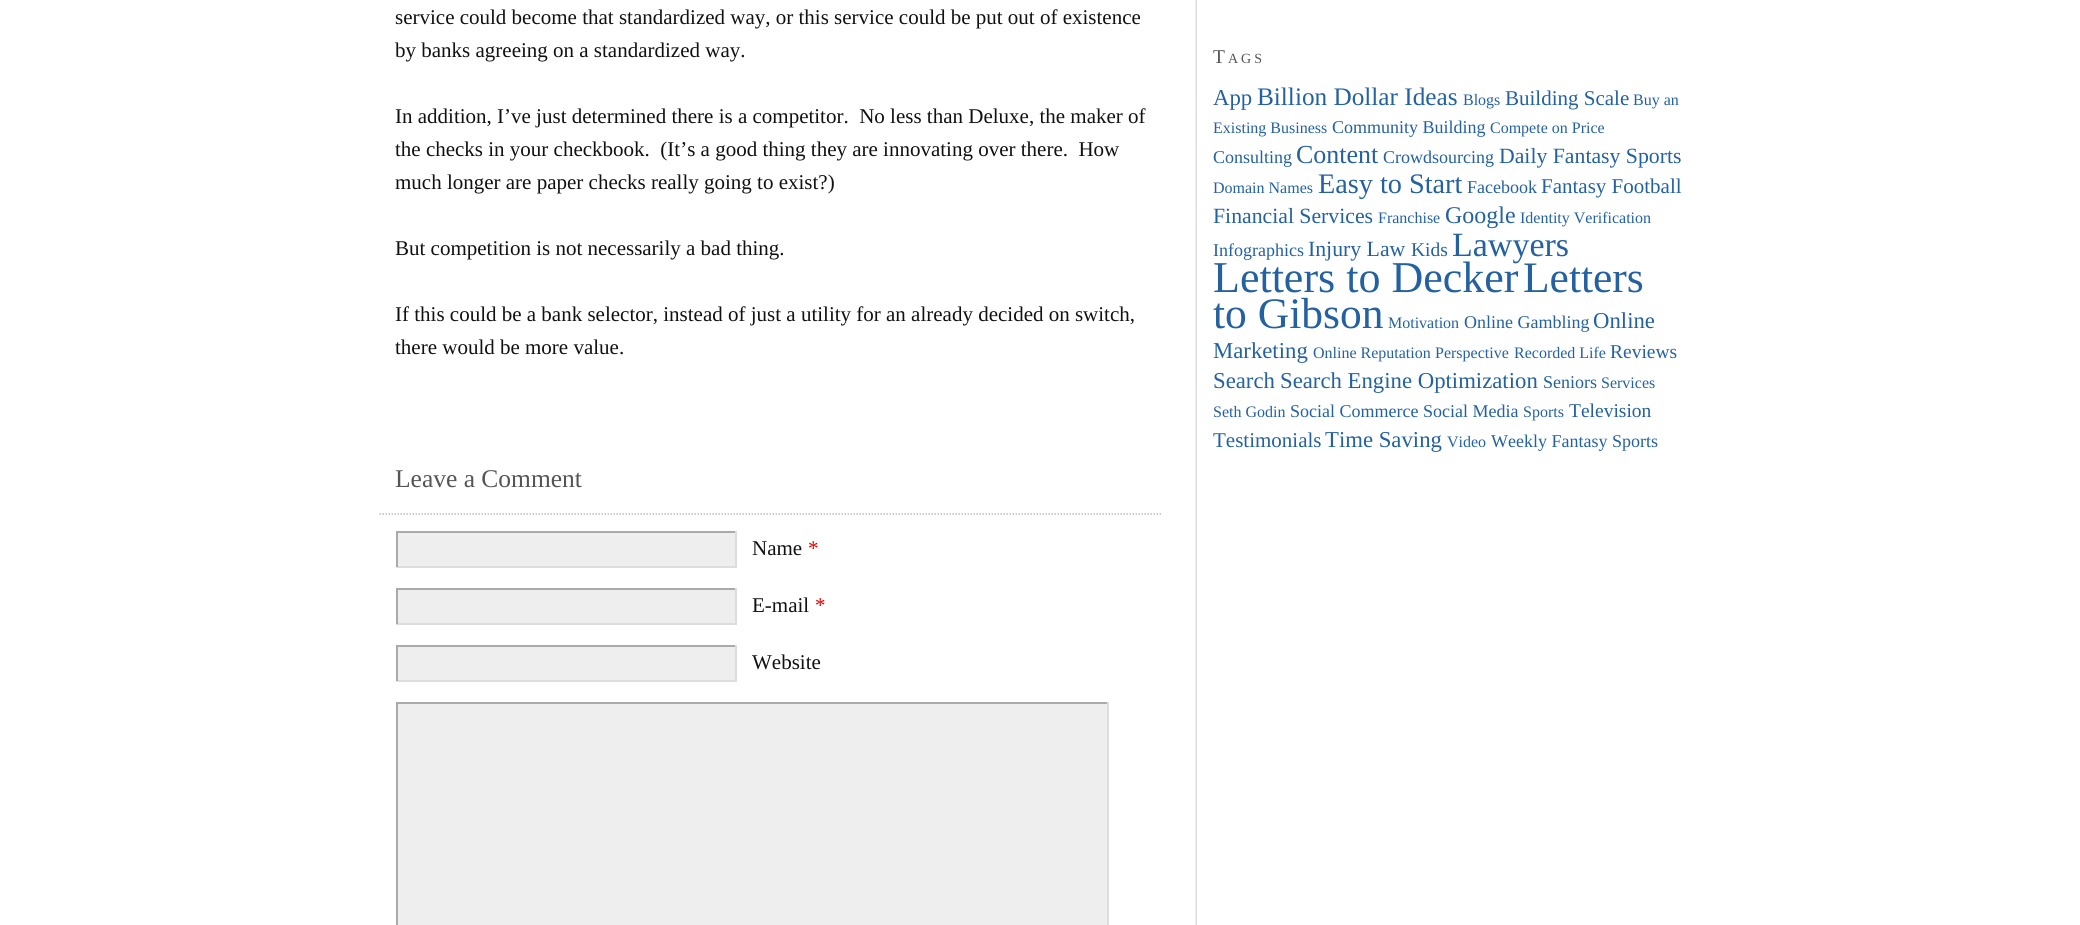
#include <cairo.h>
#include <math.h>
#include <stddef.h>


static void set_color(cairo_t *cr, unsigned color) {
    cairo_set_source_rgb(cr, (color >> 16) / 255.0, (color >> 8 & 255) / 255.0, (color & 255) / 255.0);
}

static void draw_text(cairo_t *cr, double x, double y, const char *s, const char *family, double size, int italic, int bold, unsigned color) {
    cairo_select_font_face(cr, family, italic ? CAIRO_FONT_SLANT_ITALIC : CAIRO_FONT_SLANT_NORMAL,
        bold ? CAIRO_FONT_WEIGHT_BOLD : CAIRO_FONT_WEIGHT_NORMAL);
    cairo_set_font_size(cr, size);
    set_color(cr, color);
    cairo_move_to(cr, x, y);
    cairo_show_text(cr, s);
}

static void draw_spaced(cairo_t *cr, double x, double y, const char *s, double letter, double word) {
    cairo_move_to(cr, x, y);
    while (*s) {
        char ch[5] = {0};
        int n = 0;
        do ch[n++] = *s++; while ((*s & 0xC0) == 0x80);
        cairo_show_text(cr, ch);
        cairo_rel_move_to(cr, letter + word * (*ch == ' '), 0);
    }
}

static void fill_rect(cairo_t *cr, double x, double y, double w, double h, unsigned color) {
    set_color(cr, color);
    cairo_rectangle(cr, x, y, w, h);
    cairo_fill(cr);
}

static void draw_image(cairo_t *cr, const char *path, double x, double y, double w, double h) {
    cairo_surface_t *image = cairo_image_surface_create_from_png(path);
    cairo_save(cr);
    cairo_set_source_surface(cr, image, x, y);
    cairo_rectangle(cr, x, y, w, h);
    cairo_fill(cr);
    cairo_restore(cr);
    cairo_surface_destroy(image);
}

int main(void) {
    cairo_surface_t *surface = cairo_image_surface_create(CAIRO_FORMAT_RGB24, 2080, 925);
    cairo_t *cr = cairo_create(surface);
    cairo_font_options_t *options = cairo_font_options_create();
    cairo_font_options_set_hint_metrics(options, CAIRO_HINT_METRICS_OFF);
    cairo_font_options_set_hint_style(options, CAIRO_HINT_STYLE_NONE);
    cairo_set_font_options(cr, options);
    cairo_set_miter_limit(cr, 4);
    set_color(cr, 0xFFFFFF);
    cairo_paint(cr);
    draw_image(cr, "assets/img1.png", 1195, 0, 2, 925);
    draw_text(cr, 395, 24, "service could become that standardized way, or this service could be put out of existence", "Liberation Serif", 21, 0, 0, 0x111111);
    draw_text(cr, 395, 57, "by banks agreeing on a standardized way.", "Liberation Serif", 21, 0, 0, 0x111111);
    draw_text(cr, 395, 123, "In addition, I’ve just determined there is a competitor.  No less than Deluxe, the maker of", "Liberation Serif", 21, 0, 0, 0x111111);
    draw_text(cr, 395, 156, "the checks in your checkbook.  (It’s a good thing they are innovating over there.  How", "Liberation Serif", 21, 0, 0, 0x111111);
    draw_text(cr, 395, 189, "much longer are paper checks really going to exist?)", "Liberation Serif", 21, 0, 0, 0x111111);
    draw_text(cr, 395, 255, "But competition is not necessarily a bad thing.", "Liberation Serif", 21, 0, 0, 0x111111);
    draw_text(cr, 395, 321, "If this could be a bank selector, instead of just a utility for an already decided on switch,", "Liberation Serif", 21, 0, 0, 0x111111);
    draw_text(cr, 395, 354, "there would be more value.", "Liberation Serif", 21, 0, 0, 0x111111);
    draw_text(cr, 395, 487, "Leave a Comment", "Liberation Serif", 25.5, 0, 0, 0x555555);
    cairo_new_path(cr);
    cairo_move_to(cr, 379.5, 514);
    cairo_line_to(cr, 1161, 514);
    set_color(cr, 0xBBBBBB);
    cairo_set_line_width(cr, 1.5);
    cairo_set_dash(cr, (double[]){1.5, 1.5}, 2, 0);
    cairo_stroke(cr);
    fill_rect(cr, 398, 533, 337, 33, 0xEEEEEE);
    fill_rect(cr, 396, 531, 341, 2, 0xAAAAAA);
    fill_rect(cr, 735, 531, 2, 36, 0xDDDDDD);
    fill_rect(cr, 396, 566, 341, 2, 0xDDDDDD);
    fill_rect(cr, 396, 531, 2, 36, 0xAAAAAA);
    draw_text(cr, 752, 555, "Name", "Liberation Serif", 21, 0, 0, 0x111111);
    draw_text(cr, 808, 555, "*", "Liberation Serif", 21, 0, 0, 0xDD0000);
    fill_rect(cr, 398, 590, 337, 33, 0xEEEEEE);
    fill_rect(cr, 396, 588, 341, 2, 0xAAAAAA);
    fill_rect(cr, 735, 588, 2, 36, 0xDDDDDD);
    fill_rect(cr, 396, 623, 341, 2, 0xDDDDDD);
    fill_rect(cr, 396, 588, 2, 36, 0xAAAAAA);
    draw_text(cr, 752, 612, "E-mail", "Liberation Serif", 21, 0, 0, 0x111111);
    draw_text(cr, 815, 612, "*", "Liberation Serif", 21, 0, 0, 0xDD0000);
    fill_rect(cr, 398, 647, 337, 33, 0xEEEEEE);
    fill_rect(cr, 396, 645, 341, 2, 0xAAAAAA);
    fill_rect(cr, 735, 645, 2, 36, 0xDDDDDD);
    fill_rect(cr, 396, 680, 341, 2, 0xDDDDDD);
    fill_rect(cr, 396, 645, 2, 36, 0xAAAAAA);
    draw_text(cr, 752, 669, "Website", "Liberation Serif", 21, 0, 0, 0x111111);
    fill_rect(cr, 398, 704, 709, 221, 0xEEEEEE);
    fill_rect(cr, 396, 702, 713, 2, 0xAAAAAA);
    fill_rect(cr, 1107, 702, 2, 223, 0xDDDDDD);
    fill_rect(cr, 396, 702, 2, 223, 0xAAAAAA);
    cairo_set_font_size(cr, 19.5);
    set_color(cr, 0x555555);
    draw_spaced(cr, 1213, 63, "T", 3, 0);
    cairo_set_font_size(cr, 14);
    draw_spaced(cr, 1228, 63, "AGS", 3, 0);
    draw_text(cr, 1213, 105, "App", "Liberation Serif", 22.75, 0, 0, 0x2361A1);
    draw_text(cr, 1257, 105, "Billion Dollar Ideas", "Liberation Serif", 25.25, 0, 0, 0x2361A1);
    draw_text(cr, 1463, 105, "Blogs", "Liberation Serif", 16, 0, 0, 0x2361A1);
    draw_text(cr, 1505, 105, "Building Scale", "Liberation Serif", 21, 0, 0, 0x2361A1);
    draw_text(cr, 1633, 105, "Buy an", "Liberation Serif", 16, 0, 0, 0x2361A1);
    draw_text(cr, 1213, 133, "Existing Business", "Liberation Serif", 16, 0, 0, 0x2361A1);
    draw_text(cr, 1332, 133, "Community Building", "Liberation Serif", 18, 0, 0, 0x2361A1);
    draw_text(cr, 1490, 133, "Compete on Price", "Liberation Serif", 16, 0, 0, 0x2361A1);
    draw_text(cr, 1213, 163, "Consulting", "Liberation Serif", 18, 0, 0, 0x2361A1);
    draw_text(cr, 1296, 163, "Content", "Liberation Serif", 26, 0, 0, 0x2361A1);
    draw_text(cr, 1383, 163, "Crowdsourcing", "Liberation Serif", 18, 0, 0, 0x2361A1);
    draw_text(cr, 1499, 163, "Daily Fantasy Sports", "Liberation Serif", 21.75, 0, 0, 0x2361A1);
    draw_text(cr, 1213, 193, "Domain Names", "Liberation Serif", 16, 0, 0, 0x2361A1);
    draw_text(cr, 1318, 193, "Easy to Start", "Liberation Serif", 28.25, 0, 0, 0x2361A1);
    draw_text(cr, 1467, 193, "Facebook", "Liberation Serif", 18, 0, 0, 0x2361A1);
    draw_text(cr, 1541, 193, "Fantasy Football", "Liberation Serif", 21, 0, 0, 0x2361A1);
    draw_text(cr, 1213, 223, "Financial Services", "Liberation Serif", 21.75, 0, 0, 0x2361A1);
    draw_text(cr, 1378, 223, "Franchise", "Liberation Serif", 16, 0, 0, 0x2361A1);
    draw_text(cr, 1445, 223, "Google", "Liberation Serif", 24, 0, 0, 0x2361A1);
    draw_text(cr, 1520, 223, "Identity Verification", "Liberation Serif", 16, 0, 0, 0x2361A1);
    draw_text(cr, 1213, 256, "Infographics", "Liberation Serif", 18, 0, 0, 0x2361A1);
    draw_text(cr, 1308, 256, "Injury Law", "Liberation Serif", 21.75, 0, 0, 0x2361A1);
    draw_text(cr, 1411, 256, "Kids", "Liberation Serif", 19.5, 0, 0, 0x2361A1);
    draw_text(cr, 1452, 256, "Lawyers", "Liberation Serif", 34, 0, 0, 0x2361A1);
    draw_text(cr, 1213, 292, "Letters to Decker", "Liberation Serif", 44, 0, 0, 0x2361A1);
    draw_text(cr, 1523, 292, "Letters", "Liberation Serif", 43.5, 0, 0, 0x2361A1);
    draw_text(cr, 1213, 328, "to Gibson", "Liberation Serif", 43.5, 0, 0, 0x2361A1);
    draw_text(cr, 1388, 328, "Motivation", "Liberation Serif", 16, 0, 0, 0x2361A1);
    draw_text(cr, 1464, 328, "Online Gambling", "Liberation Serif", 18, 0, 0, 0x2361A1);
    draw_text(cr, 1593, 328, "Online", "Liberation Serif", 22.75, 0, 0, 0x2361A1);
    draw_text(cr, 1213, 358, "Marketing", "Liberation Serif", 22.75, 0, 0, 0x2361A1);
    draw_text(cr, 1313, 358, "Online Reputation", "Liberation Serif", 16, 0, 0, 0x2361A1);
    draw_text(cr, 1435, 358, "Perspective", "Liberation Serif", 16, 0, 0, 0x2361A1);
    draw_text(cr, 1514, 358, "Recorded Life", "Liberation Serif", 16, 0, 0, 0x2361A1);
    draw_text(cr, 1610, 358, "Reviews", "Liberation Serif", 19.5, 0, 0, 0x2361A1);
    draw_text(cr, 1213, 388, "Search", "Liberation Serif", 22.75, 0, 0, 0x2361A1);
    draw_text(cr, 1280, 388, "Search Engine Optimization", "Liberation Serif", 22.75, 0, 0, 0x2361A1);
    draw_text(cr, 1543, 388, "Seniors", "Liberation Serif", 18, 0, 0, 0x2361A1);
    draw_text(cr, 1601, 388, "Services", "Liberation Serif", 16, 0, 0, 0x2361A1);
    draw_text(cr, 1213, 417, "Seth Godin", "Liberation Serif", 16, 0, 0, 0x2361A1);
    draw_text(cr, 1290, 417, "Social Commerce Social Media", "Liberation Serif", 18, 0, 0, 0x2361A1);
    draw_text(cr, 1523, 417, "Sports", "Liberation Serif", 16, 0, 0, 0x2361A1);
    draw_text(cr, 1569, 417, "Television", "Liberation Serif", 19.5, 0, 0, 0x2361A1);
    draw_text(cr, 1213, 447, "Testimonials", "Liberation Serif", 21, 0, 0, 0x2361A1);
    draw_text(cr, 1325, 447, "Time Saving", "Liberation Serif", 22.75, 0, 0, 0x2361A1);
    draw_text(cr, 1447, 447, "Video", "Liberation Serif", 16, 0, 0, 0x2361A1);
    draw_text(cr, 1491, 447, "Weekly Fantasy Sports", "Liberation Serif", 18, 0, 0, 0x2361A1);
    cairo_surface_write_to_png(surface, "output.png");
    cairo_font_options_destroy(options);
    cairo_destroy(cr);
    cairo_surface_destroy(surface);
    return 0;
}
